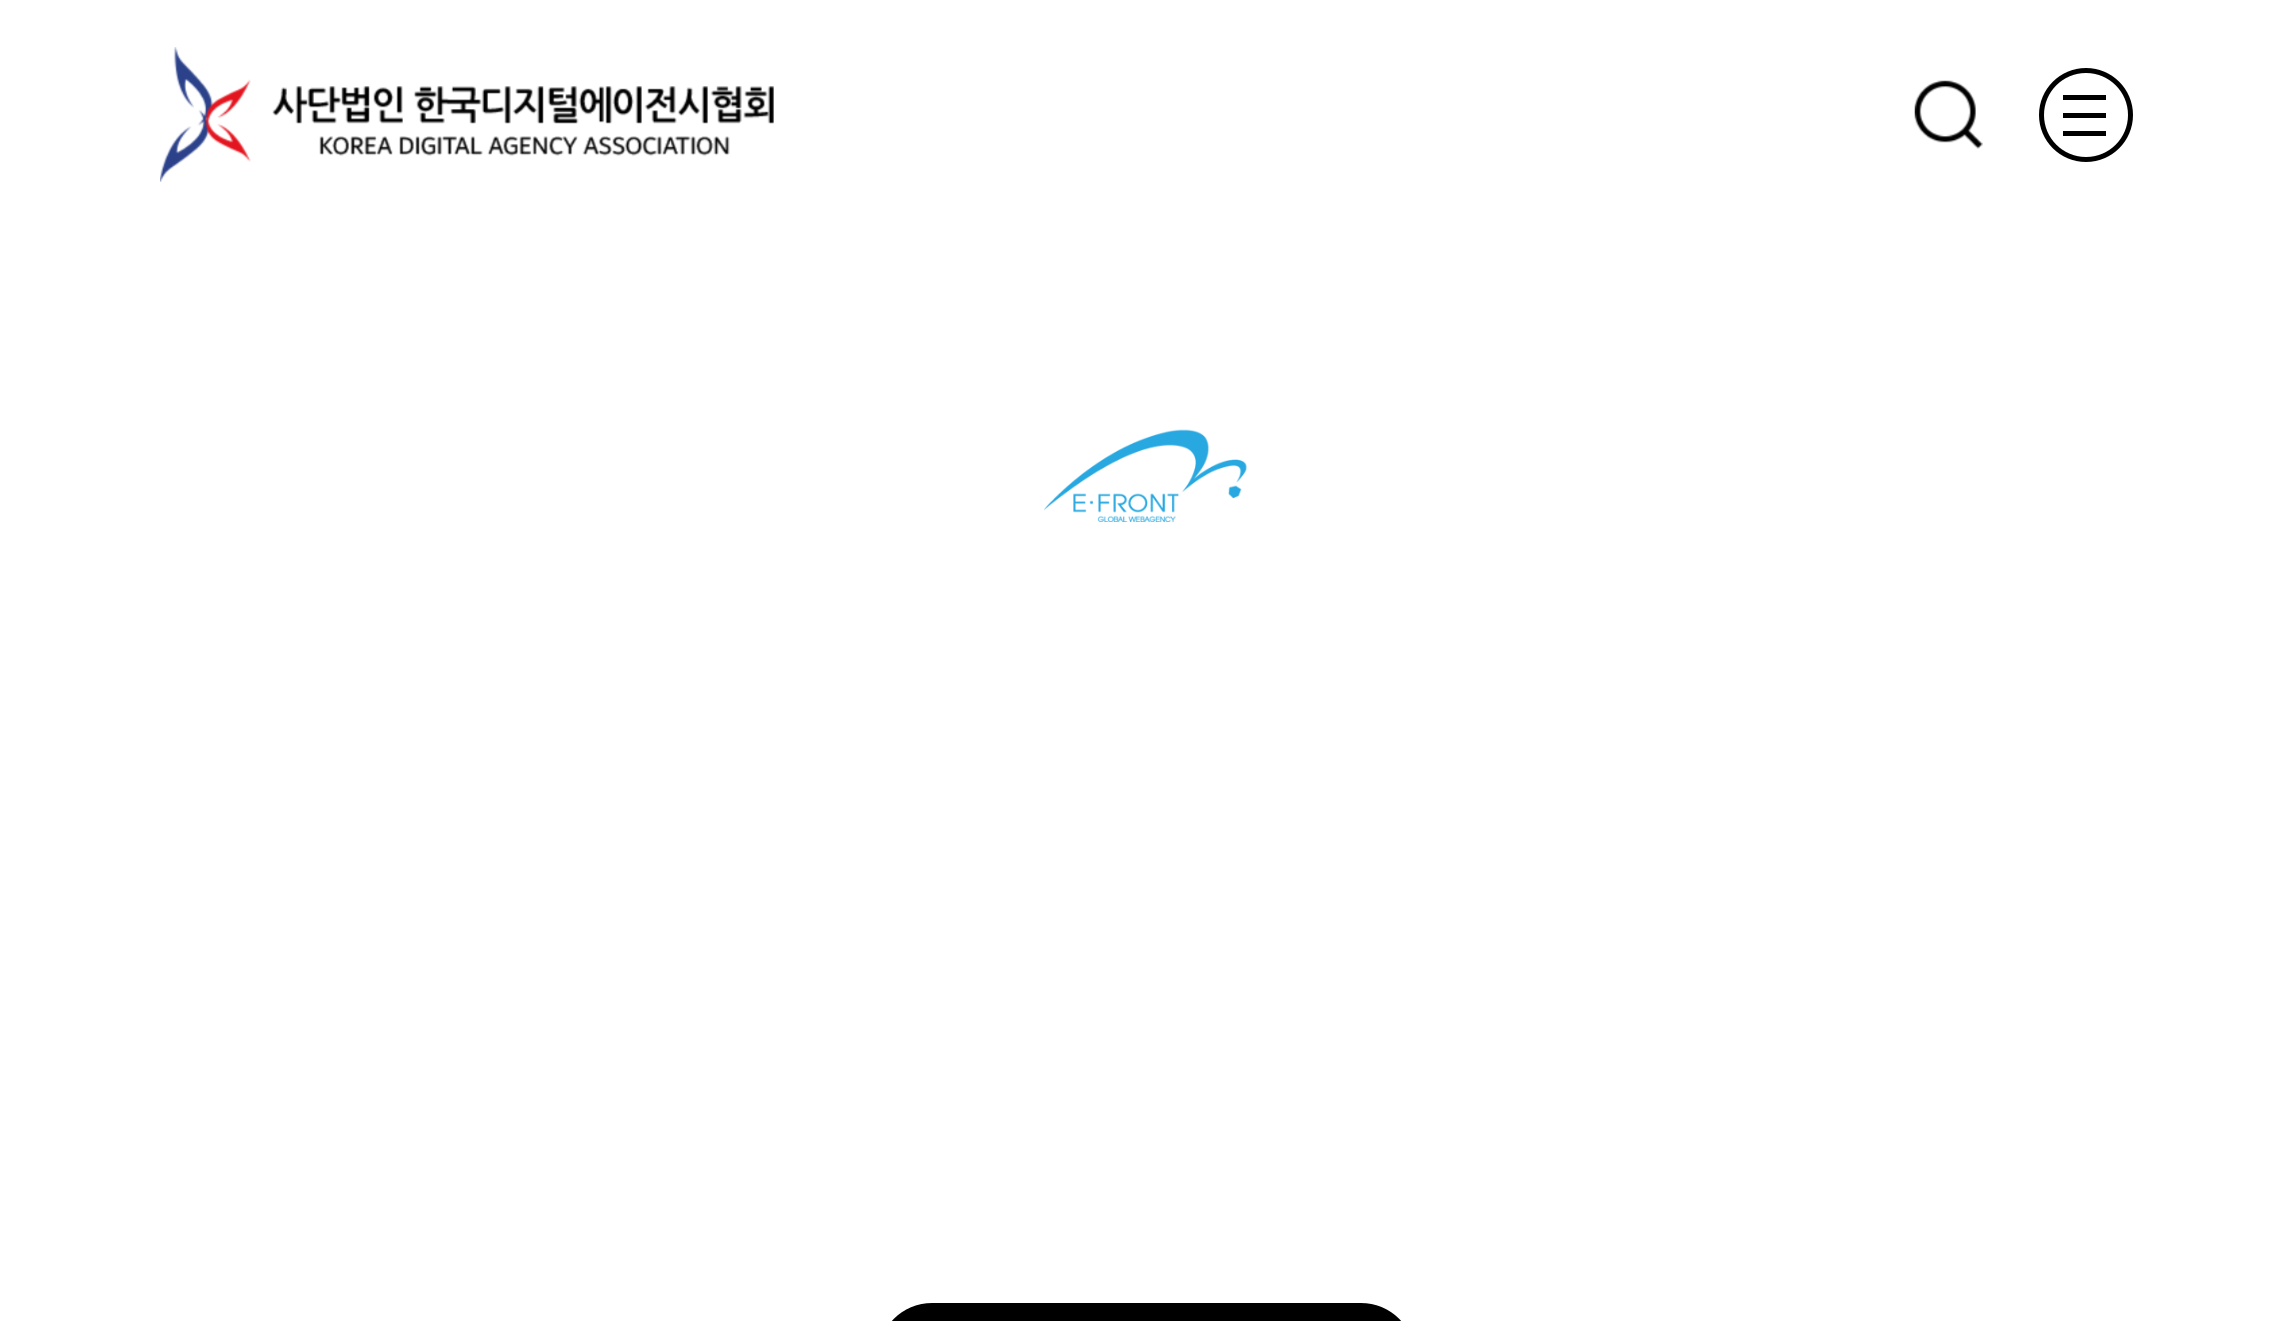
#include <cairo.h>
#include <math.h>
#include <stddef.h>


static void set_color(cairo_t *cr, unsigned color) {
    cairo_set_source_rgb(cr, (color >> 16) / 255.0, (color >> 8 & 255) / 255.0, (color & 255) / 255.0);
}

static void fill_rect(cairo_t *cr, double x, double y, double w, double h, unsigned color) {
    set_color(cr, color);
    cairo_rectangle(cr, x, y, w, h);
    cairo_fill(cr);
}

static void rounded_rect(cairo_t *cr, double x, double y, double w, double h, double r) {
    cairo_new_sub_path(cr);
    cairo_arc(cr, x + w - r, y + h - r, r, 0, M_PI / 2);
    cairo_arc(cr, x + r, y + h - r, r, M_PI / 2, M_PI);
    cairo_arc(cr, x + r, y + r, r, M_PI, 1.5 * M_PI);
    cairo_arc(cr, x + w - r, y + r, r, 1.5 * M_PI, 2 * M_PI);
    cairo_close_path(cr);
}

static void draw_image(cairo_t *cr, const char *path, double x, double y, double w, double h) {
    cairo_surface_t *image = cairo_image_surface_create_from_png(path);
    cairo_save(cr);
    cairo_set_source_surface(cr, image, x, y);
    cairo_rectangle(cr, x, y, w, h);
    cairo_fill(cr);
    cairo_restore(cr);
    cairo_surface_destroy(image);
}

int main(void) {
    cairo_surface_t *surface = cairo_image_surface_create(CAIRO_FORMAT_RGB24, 2291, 1321);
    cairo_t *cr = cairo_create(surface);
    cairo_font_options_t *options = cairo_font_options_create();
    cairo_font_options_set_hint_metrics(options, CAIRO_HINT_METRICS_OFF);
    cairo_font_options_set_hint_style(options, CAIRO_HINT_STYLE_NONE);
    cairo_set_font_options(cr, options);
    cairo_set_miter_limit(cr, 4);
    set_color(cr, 0xFFFFFF);
    cairo_paint(cr);
    draw_image(cr, "assets/img1.png", 160, 47, 614, 135);
    draw_image(cr, "assets/img2.png", 1914, 80, 69, 69);
    cairo_arc(cr, 2086, 115, 44.5, 0, 2 * M_PI);
    set_color(cr, 0x000000);
    cairo_set_line_width(cr, 5);
    cairo_stroke(cr);
    fill_rect(cr, 2063, 95, 43, 5, 0x000000);
    fill_rect(cr, 2063, 113, 43, 5, 0x000000);
    fill_rect(cr, 2063, 131, 43, 5, 0x000000);
    draw_image(cr, "assets/img3.png", 1044, 429, 203, 93);
    rounded_rect(cr, 878, 1303, 537, 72, 54);
    cairo_fill(cr);
    cairo_surface_write_to_png(surface, "output.png");
    cairo_font_options_destroy(options);
    cairo_destroy(cr);
    cairo_surface_destroy(surface);
    return 0;
}
